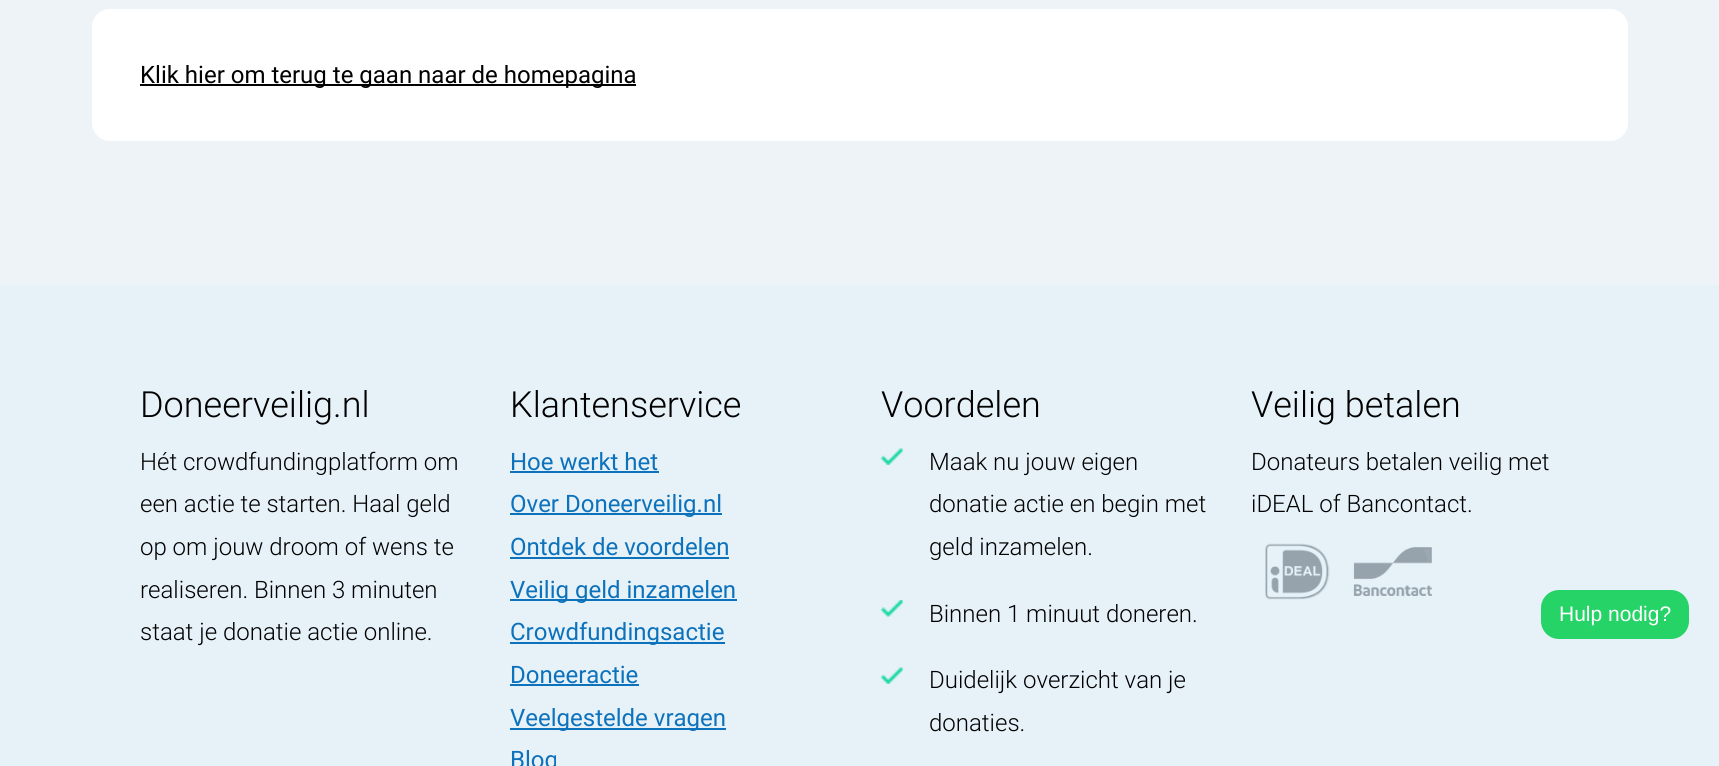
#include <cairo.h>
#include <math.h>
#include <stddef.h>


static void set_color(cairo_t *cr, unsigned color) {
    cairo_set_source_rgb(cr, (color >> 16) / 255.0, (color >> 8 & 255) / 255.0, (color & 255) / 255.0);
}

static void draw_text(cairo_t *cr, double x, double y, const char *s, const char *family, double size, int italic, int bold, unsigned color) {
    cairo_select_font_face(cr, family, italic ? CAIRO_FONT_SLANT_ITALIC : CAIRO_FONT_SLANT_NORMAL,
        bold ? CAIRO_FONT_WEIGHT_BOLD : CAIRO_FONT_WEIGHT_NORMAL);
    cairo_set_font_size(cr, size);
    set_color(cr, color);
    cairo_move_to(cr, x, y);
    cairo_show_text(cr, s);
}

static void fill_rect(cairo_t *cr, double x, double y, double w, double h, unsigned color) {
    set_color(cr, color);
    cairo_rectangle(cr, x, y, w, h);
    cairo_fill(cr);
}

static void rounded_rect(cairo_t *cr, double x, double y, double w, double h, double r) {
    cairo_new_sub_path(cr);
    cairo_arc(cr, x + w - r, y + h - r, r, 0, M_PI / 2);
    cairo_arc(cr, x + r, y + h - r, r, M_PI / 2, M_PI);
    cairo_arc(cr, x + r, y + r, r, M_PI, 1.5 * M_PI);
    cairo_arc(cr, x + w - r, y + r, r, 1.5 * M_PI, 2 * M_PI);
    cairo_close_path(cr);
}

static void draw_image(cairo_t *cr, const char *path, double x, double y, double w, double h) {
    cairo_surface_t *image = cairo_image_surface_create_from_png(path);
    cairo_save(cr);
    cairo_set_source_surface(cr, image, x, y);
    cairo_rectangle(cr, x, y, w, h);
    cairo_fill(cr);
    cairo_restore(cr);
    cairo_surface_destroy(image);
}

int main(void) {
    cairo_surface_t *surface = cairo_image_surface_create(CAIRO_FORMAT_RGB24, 1719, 766);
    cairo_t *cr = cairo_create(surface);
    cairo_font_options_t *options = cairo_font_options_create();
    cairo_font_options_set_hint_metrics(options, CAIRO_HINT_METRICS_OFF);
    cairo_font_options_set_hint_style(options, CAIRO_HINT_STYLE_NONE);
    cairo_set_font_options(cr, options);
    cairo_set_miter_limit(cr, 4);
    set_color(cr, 0xEDF3F7);
    cairo_paint(cr);
    set_color(cr, 0xFFFFFF);
    rounded_rect(cr, 92, 9, 1536, 132, 18);
    cairo_fill(cr);
    fill_rect(cr, 140, 84, 496, 2, 0x000000);
    draw_text(cr, 140, 83, "Klik hier om terug te gaan naar de homepagina", "Roboto", 24, 0, 0, 0x000000);
    fill_rect(cr, 0, 285, 1719, 481, 0xE6F1F8);
    draw_text(cr, 140, 417, "Doneerveilig.nl", "Roboto Light", 36, 0, 0, 0x000000);
    draw_text(cr, 140, 470, "Hét crowdfundingplatform om", "Roboto Light", 24, 0, 0, 0x000000);
    draw_text(cr, 140, 512, "een actie te starten. Haal geld", "Roboto Light", 24, 0, 0, 0x000000);
    draw_text(cr, 140, 555, "op om jouw droom of wens te", "Roboto Light", 24, 0, 0, 0x000000);
    draw_text(cr, 140, 598, "realiseren. Binnen 3 minuten", "Roboto Light", 24, 0, 0, 0x000000);
    draw_text(cr, 140, 640, "staat je donatie actie online.", "Roboto Light", 24, 0, 0, 0x000000);
    draw_text(cr, 510, 417, "Klantenservice", "Roboto Light", 36, 0, 0, 0x000000);
    draw_text(cr, 510, 470, "Hoe werkt het", "Roboto", 24, 0, 0, 0x0D72BC);
    fill_rect(cr, 510, 471, 149, 2, 0x0D72BC);
    fill_rect(cr, 510, 513, 212, 2, 0x0D72BC);
    draw_text(cr, 510, 512, "Over Doneerveilig.nl", "Roboto", 24, 0, 0, 0x0D72BC);
    draw_text(cr, 510, 555, "Ontdek de voordelen", "Roboto", 24, 0, 0, 0x0D72BC);
    fill_rect(cr, 510, 557, 219, 2, 0x0D72BC);
    fill_rect(cr, 510, 599, 227, 2, 0x0D72BC);
    draw_text(cr, 510, 598, "Veilig geld inzamelen", "Roboto", 24, 0, 0, 0x0D72BC);
    fill_rect(cr, 510, 642, 215, 2, 0x0D72BC);
    draw_text(cr, 510, 640, "Crowdfundingsactie", "Roboto", 24, 0, 0, 0x0D72BC);
    draw_text(cr, 510, 683, "Doneeractie", "Roboto", 24, 0, 0, 0x0D72BC);
    fill_rect(cr, 510, 684, 129, 2, 0x0D72BC);
    fill_rect(cr, 510, 728, 216, 2, 0x0D72BC);
    draw_text(cr, 510, 726, "Veelgestelde vragen", "Roboto", 24, 0, 0, 0x0D72BC);
    draw_text(cr, 510, 768, "Blog", "Roboto", 24, 0, 0, 0x0D72BC);
    draw_text(cr, 881, 417, "Voordelen", "Roboto Light", 36, 0, 0, 0x000000);
    draw_image(cr, "assets/img1.png", 880, 448, 23, 17);
    draw_text(cr, 929, 470, "Maak nu jouw eigen", "Roboto Light", 24, 0, 0, 0x000000);
    draw_text(cr, 929, 512, "donatie actie en begin met", "Roboto Light", 24, 0, 0, 0x000000);
    draw_text(cr, 929, 555, "geld inzamelen.", "Roboto Light", 24, 0, 0, 0x000000);
    draw_image(cr, "assets/img2.png", 880, 600, 23, 17);
    draw_text(cr, 929, 622, "Binnen 1 minuut doneren.", "Roboto Light", 24, 0, 0, 0x000000);
    draw_image(cr, "assets/img1.png", 880, 667, 23, 17);
    draw_text(cr, 929, 688, "Duidelijk overzicht van je", "Roboto Light", 24, 0, 0, 0x000000);
    draw_text(cr, 929, 731, "donaties.", "Roboto Light", 24, 0, 0, 0x000000);
    draw_text(cr, 1251, 417, "Veilig betalen", "Roboto Light", 36, 0, 0, 0x000000);
    draw_text(cr, 1251, 470, "Donateurs betalen veilig met", "Roboto Light", 24, 0, 0, 0x000000);
    draw_text(cr, 1251, 512, "iDEAL of Bancontact.", "Roboto Light", 24, 0, 0, 0x000000);
    draw_image(cr, "assets/img3.png", 1265, 543, 167, 57);
    set_color(cr, 0x25D366);
    rounded_rect(cr, 1541, 590, 148, 49, 18);
    cairo_fill(cr);
    draw_text(cr, 1559, 621, "Hulp nodig?", "Liberation Sans", 21, 0, 0, 0xFFFFFF);
    cairo_surface_write_to_png(surface, "output.png");
    cairo_font_options_destroy(options);
    cairo_destroy(cr);
    cairo_surface_destroy(surface);
    return 0;
}
